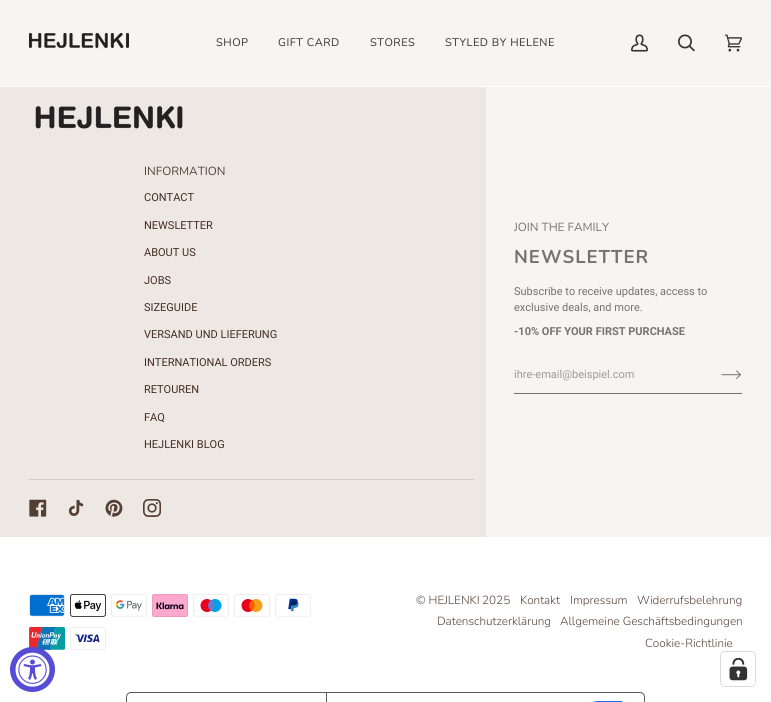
#include <cairo.h>
#include <math.h>
#include <stddef.h>


static void set_color(cairo_t *cr, unsigned color) {
    cairo_set_source_rgb(cr, (color >> 16) / 255.0, (color >> 8 & 255) / 255.0, (color & 255) / 255.0);
}

static void draw_text(cairo_t *cr, double x, double y, const char *s, const char *family, double size, int italic, int bold, unsigned color) {
    cairo_select_font_face(cr, family, italic ? CAIRO_FONT_SLANT_ITALIC : CAIRO_FONT_SLANT_NORMAL,
        bold ? CAIRO_FONT_WEIGHT_BOLD : CAIRO_FONT_WEIGHT_NORMAL);
    cairo_set_font_size(cr, size);
    set_color(cr, color);
    cairo_move_to(cr, x, y);
    cairo_show_text(cr, s);
}

static void draw_spaced(cairo_t *cr, double x, double y, const char *s, double letter, double word) {
    cairo_move_to(cr, x, y);
    while (*s) {
        char ch[5] = {0};
        int n = 0;
        do ch[n++] = *s++; while ((*s & 0xC0) == 0x80);
        cairo_show_text(cr, ch);
        cairo_rel_move_to(cr, letter + word * (*ch == ' '), 0);
    }
}

static void fill_rect(cairo_t *cr, double x, double y, double w, double h, unsigned color) {
    set_color(cr, color);
    cairo_rectangle(cr, x, y, w, h);
    cairo_fill(cr);
}

static void rounded_rect(cairo_t *cr, double x, double y, double w, double h, double r) {
    cairo_new_sub_path(cr);
    cairo_arc(cr, x + w - r, y + h - r, r, 0, M_PI / 2);
    cairo_arc(cr, x + r, y + h - r, r, M_PI / 2, M_PI);
    cairo_arc(cr, x + r, y + r, r, M_PI, 1.5 * M_PI);
    cairo_arc(cr, x + w - r, y + r, r, 1.5 * M_PI, 2 * M_PI);
    cairo_close_path(cr);
}

static void draw_image(cairo_t *cr, const char *path, double x, double y, double w, double h) {
    cairo_surface_t *image = cairo_image_surface_create_from_png(path);
    cairo_save(cr);
    cairo_set_source_surface(cr, image, x, y);
    cairo_rectangle(cr, x, y, w, h);
    cairo_fill(cr);
    cairo_restore(cr);
    cairo_surface_destroy(image);
}

int main(void) {
    cairo_surface_t *surface = cairo_image_surface_create(CAIRO_FORMAT_RGB24, 771, 702);
    cairo_t *cr = cairo_create(surface);
    cairo_font_options_t *options = cairo_font_options_create();
    cairo_font_options_set_hint_metrics(options, CAIRO_HINT_METRICS_OFF);
    cairo_font_options_set_hint_style(options, CAIRO_HINT_STYLE_NONE);
    cairo_set_font_options(cr, options);
    cairo_set_miter_limit(cr, 4);
    set_color(cr, 0xFFFFFF);
    cairo_paint(cr);
    fill_rect(cr, 0, 0, 771, 86, 0xF7F5F1);
    draw_image(cr, "assets/img1.png", 29, 33, 100, 16);
    cairo_select_font_face(cr, "Nunito", CAIRO_FONT_SLANT_NORMAL, CAIRO_FONT_WEIGHT_NORMAL);
    cairo_set_font_size(cr, 11);
    set_color(cr, 0x333333);
    draw_spaced(cr, 216, 46, "SHOP", 0.5, 0);
    draw_spaced(cr, 278, 46, "GIFT CARD", 0.5, 0);
    draw_spaced(cr, 370, 46, "STORES", 0.5, 0);
    draw_spaced(cr, 445, 46, "STYLED BY HELENE", 0.5, 0);
    draw_image(cr, "assets/img2.png", 631, 34, 17, 18);
    draw_image(cr, "assets/img3.png", 678, 34, 17, 18);
    draw_image(cr, "assets/img4.png", 725, 34, 17, 18);
    fill_rect(cr, 0, 87, 486, 450, 0xEEE8E5);
    draw_image(cr, "assets/img5.png", 35, 106, 148, 23);
    draw_text(cr, 144, 175, "INFORMATION", "Nunito", 11.75, 0, 0, 0x564236);
    draw_text(cr, 144, 201, "CONTACT", "Roboto", 11, 0, 0, 0x432D20);
    draw_text(cr, 144, 229, "NEWSLETTER", "Roboto", 11, 0, 0, 0x432D20);
    draw_text(cr, 144, 256, "ABOUT US", "Roboto", 11, 0, 0, 0x432D20);
    draw_text(cr, 144, 284, "JOBS", "Roboto", 11, 0, 0, 0x432D20);
    draw_text(cr, 144, 311, "SIZEGUIDE", "Roboto", 11, 0, 0, 0x432D20);
    draw_text(cr, 144, 338, "VERSAND UND LIEFERUNG", "Roboto", 11, 0, 0, 0x432D20);
    draw_text(cr, 144, 366, "INTERNATIONAL ORDERS", "Roboto", 11, 0, 0, 0x432D20);
    draw_text(cr, 144, 393, "RETOUREN", "Roboto", 11, 0, 0, 0x432D20);
    draw_text(cr, 144, 421, "FAQ", "Roboto", 11, 0, 0, 0x432D20);
    draw_text(cr, 144, 448, "HEJLENKI BLOG", "Roboto", 11, 0, 0, 0x432D20);
    fill_rect(cr, 29, 479, 445, 1, 0xD4CCC7);
    draw_image(cr, "assets/img6.png", 29, 499, 18, 18);
    draw_image(cr, "assets/img7.png", 68, 499, 16, 17);
    draw_image(cr, "assets/img8.png", 105, 499, 18, 18);
    draw_image(cr, "assets/img9.png", 143, 499, 18, 18);
    fill_rect(cr, 486, 87, 285, 450, 0xF7F5F1);
    draw_text(cr, 514, 231, "JOIN THE FAMILY", "Nunito", 11.75, 0, 0, 0x747373);
    cairo_select_font_face(cr, "Nunito", CAIRO_FONT_SLANT_NORMAL, CAIRO_FONT_WEIGHT_BOLD);
    cairo_set_font_size(cr, 18.5);
    draw_spaced(cr, 514, 263, "NEWSLETTER", 1, 0);
    draw_text(cr, 514, 295, "Subscribe to receive updates, access to", "Roboto", 11, 0, 0, 0x747373);
    draw_text(cr, 514, 311, "exclusive deals, and more.", "Roboto", 11, 0, 0, 0x747373);
    draw_text(cr, 514, 335, "-10% OFF YOUR FIRST PURCHASE", "Roboto", 11, 0, 1, 0x747373);
    fill_rect(cr, 514, 393, 228, 1, 0x747373);
    draw_text(cr, 514, 378, "ihre-email@beispiel.com", "Roboto", 11, 0, 0, 0x9B9A99);
    draw_image(cr, "assets/img10.png", 721, 370, 21, 9);
    draw_image(cr, "assets/img11.png", 29, 594, 36, 23);
    draw_image(cr, "assets/img12.png", 70, 594, 36, 23);
    draw_image(cr, "assets/img13.png", 111, 594, 36, 23);
    draw_image(cr, "assets/img14.png", 152, 594, 36, 23);
    draw_image(cr, "assets/img15.png", 193, 594, 36, 23);
    draw_image(cr, "assets/img16.png", 234, 594, 36, 23);
    draw_image(cr, "assets/img17.png", 275, 594, 36, 23);
    draw_image(cr, "assets/img18.png", 29, 627, 36, 23);
    draw_image(cr, "assets/img19.png", 70, 627, 36, 23);
    draw_text(cr, 416, 604, "© HEJLENKI", "Nunito Light", 11.75, 0, 0, 0x564236);
    draw_text(cr, 482, 604, "2025", "Nunito Light", 11.75, 0, 0, 0x564236);
    draw_text(cr, 520, 604, "Kontakt", "Nunito Light", 11.75, 0, 0, 0x564236);
    draw_text(cr, 570, 604, "Impressum", "Nunito Light", 11.75, 0, 0, 0x564236);
    draw_text(cr, 637, 604, "Widerrufsbelehrung", "Nunito Light", 11.75, 0, 0, 0x564236);
    draw_text(cr, 437, 625, "Datenschutzerklärung", "Nunito Light", 11.75, 0, 0, 0x564236);
    draw_text(cr, 560, 625, "Allgemeine Geschäftsbedingungen", "Nunito Light", 11.75, 0, 0, 0x564236);
    draw_text(cr, 645, 647, "Cookie-Richtlinie", "Nunito Light", 11.75, 0, 0, 0x564236);
    set_color(cr, 0x574CD5);
    cairo_new_path(cr);
    cairo_arc(cr, 32.5, 669.5, 22.5, 0, 2 * M_PI);
    cairo_fill(cr);
    draw_image(cr, "assets/img20.png", 15, 652, 35, 35);
    rounded_rect(cr, 720.5, 651.5, 35, 35, 4.5);
    set_color(cr, 0xD9D9D9);
    cairo_set_line_width(cr, 1);
    cairo_stroke(cr);
    set_color(cr, 0xFFFFFF);
    rounded_rect(cr, 721, 652, 34, 34, 4);
    cairo_fill(cr);
    draw_image(cr, "assets/img21.png", 729, 658, 19, 23);
    rounded_rect(cr, 126.5, 692.5, 518, 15, 4.5);
    set_color(cr, 0x595959);
    cairo_stroke(cr);
    fill_rect(cr, 326, 693, 1, 9, 0x595959);
    draw_image(cr, "assets/img22.png", 593, 701, 30, 1);
    cairo_surface_write_to_png(surface, "output.png");
    cairo_font_options_destroy(options);
    cairo_destroy(cr);
    cairo_surface_destroy(surface);
    return 0;
}
